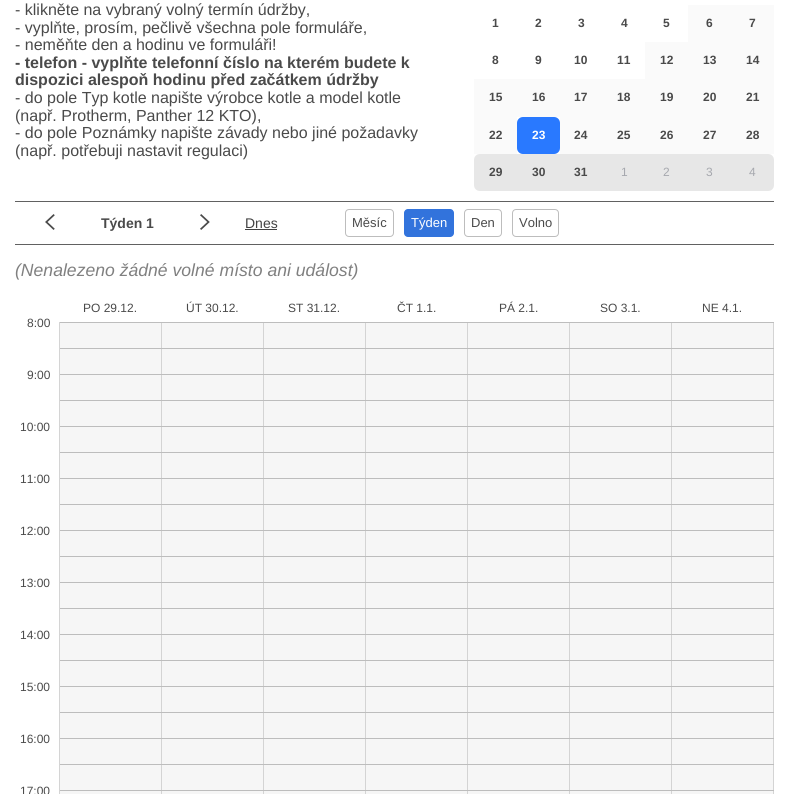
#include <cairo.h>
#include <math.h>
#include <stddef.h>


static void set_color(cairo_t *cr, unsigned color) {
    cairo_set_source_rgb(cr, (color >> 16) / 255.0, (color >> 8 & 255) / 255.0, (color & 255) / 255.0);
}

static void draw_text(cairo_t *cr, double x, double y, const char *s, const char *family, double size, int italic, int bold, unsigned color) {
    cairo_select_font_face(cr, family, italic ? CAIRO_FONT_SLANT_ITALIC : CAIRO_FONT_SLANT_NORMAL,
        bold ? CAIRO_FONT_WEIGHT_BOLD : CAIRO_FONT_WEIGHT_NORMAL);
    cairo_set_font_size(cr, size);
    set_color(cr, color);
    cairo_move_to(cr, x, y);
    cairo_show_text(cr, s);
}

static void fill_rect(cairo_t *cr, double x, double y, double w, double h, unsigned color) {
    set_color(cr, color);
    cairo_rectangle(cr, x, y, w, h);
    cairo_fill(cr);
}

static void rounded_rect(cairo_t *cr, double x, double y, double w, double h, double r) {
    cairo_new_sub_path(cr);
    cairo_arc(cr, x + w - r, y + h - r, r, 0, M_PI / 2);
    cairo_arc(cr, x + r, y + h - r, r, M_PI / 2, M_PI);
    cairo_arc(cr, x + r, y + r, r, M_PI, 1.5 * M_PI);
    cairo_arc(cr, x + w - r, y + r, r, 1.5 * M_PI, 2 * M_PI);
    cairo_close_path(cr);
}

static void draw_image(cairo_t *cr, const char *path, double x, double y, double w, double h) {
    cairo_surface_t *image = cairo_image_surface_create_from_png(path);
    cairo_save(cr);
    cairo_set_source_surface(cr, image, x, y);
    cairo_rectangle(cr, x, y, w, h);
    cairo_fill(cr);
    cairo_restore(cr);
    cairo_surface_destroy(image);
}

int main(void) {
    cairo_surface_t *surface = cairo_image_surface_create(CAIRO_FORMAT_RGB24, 789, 794);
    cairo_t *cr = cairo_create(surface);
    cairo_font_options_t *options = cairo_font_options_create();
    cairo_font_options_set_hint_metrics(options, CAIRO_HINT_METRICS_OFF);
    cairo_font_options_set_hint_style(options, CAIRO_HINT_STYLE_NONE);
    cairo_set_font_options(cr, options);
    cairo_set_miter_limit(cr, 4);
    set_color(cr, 0xFFFFFF);
    cairo_paint(cr);
    draw_text(cr, 15, 15, "- klikněte na vybraný volný termín údržby,", "Liberation Sans", 16, 0, 0, 0x4A4A4A);
    draw_text(cr, 15, 33, "- vyplňte, prosím, pečlivě všechna pole formuláře,", "Liberation Sans", 16, 0, 0, 0x4A4A4A);
    draw_text(cr, 15, 50, "- neměňte den a hodinu ve formuláři!", "Liberation Sans", 16, 0, 0, 0x4A4A4A);
    draw_text(cr, 15, 68, "- telefon - vyplňte telefonní číslo na kterém budete k", "Liberation Sans", 16, 0, 1, 0x4A4A4A);
    draw_text(cr, 15, 85, "dispozici alespoň hodinu před začátkem údržby", "Liberation Sans", 16, 0, 1, 0x4A4A4A);
    draw_text(cr, 15, 103, "- do pole Typ kotle napište výrobce kotle a model kotle", "Liberation Sans", 16, 0, 0, 0x4A4A4A);
    draw_text(cr, 15, 121, "(např. Protherm, Panther 12 KTO),", "Liberation Sans", 16, 0, 0, 0x4A4A4A);
    draw_text(cr, 15, 138, "- do pole Poznámky napište závady nebo jiné požadavky", "Liberation Sans", 16, 0, 0, 0x4A4A4A);
    draw_text(cr, 15, 156, "(např. potřebuji nastavit regulaci)", "Liberation Sans", 16, 0, 0, 0x4A4A4A);
    draw_text(cr, 492, 27, "1", "Liberation Sans", 12, 0, 1, 0x4A4A4A);
    draw_text(cr, 535, 27, "2", "Liberation Sans", 12, 0, 1, 0x4A4A4A);
    draw_text(cr, 578, 27, "3", "Liberation Sans", 12, 0, 1, 0x4A4A4A);
    draw_text(cr, 621, 27, "4", "Liberation Sans", 12, 0, 1, 0x4A4A4A);
    draw_text(cr, 663, 27, "5", "Liberation Sans", 12, 0, 1, 0x4A4A4A);
    fill_rect(cr, 688, 5, 86, 37, 0xFAFAFA);
    draw_text(cr, 706, 27, "6", "Liberation Sans", 12, 0, 1, 0x4A4A4A);
    draw_text(cr, 749, 27, "7", "Liberation Sans", 12, 0, 1, 0x4A4A4A);
    draw_text(cr, 492, 64, "8", "Liberation Sans", 12, 0, 1, 0x4A4A4A);
    draw_text(cr, 535, 64, "9", "Liberation Sans", 12, 0, 1, 0x4A4A4A);
    draw_text(cr, 574, 64, "10", "Liberation Sans", 12, 0, 1, 0x4A4A4A);
    draw_text(cr, 617, 64, "11", "Liberation Sans", 12, 0, 1, 0x4A4A4A);
    fill_rect(cr, 645, 42, 129, 37, 0xFAFAFA);
    draw_text(cr, 660, 64, "12", "Liberation Sans", 12, 0, 1, 0x4A4A4A);
    draw_text(cr, 703, 64, "13", "Liberation Sans", 12, 0, 1, 0x4A4A4A);
    draw_text(cr, 746, 64, "14", "Liberation Sans", 12, 0, 1, 0x4A4A4A);
    fill_rect(cr, 474, 79, 300, 38, 0xFAFAFA);
    draw_text(cr, 489, 101, "15", "Liberation Sans", 12, 0, 1, 0x4A4A4A);
    draw_text(cr, 532, 101, "16", "Liberation Sans", 12, 0, 1, 0x4A4A4A);
    draw_text(cr, 574, 101, "17", "Liberation Sans", 12, 0, 1, 0x4A4A4A);
    draw_text(cr, 617, 101, "18", "Liberation Sans", 12, 0, 1, 0x4A4A4A);
    draw_text(cr, 660, 101, "19", "Liberation Sans", 12, 0, 1, 0x4A4A4A);
    draw_text(cr, 703, 101, "20", "Liberation Sans", 12, 0, 1, 0x4A4A4A);
    draw_text(cr, 746, 101, "21", "Liberation Sans", 12, 0, 1, 0x4A4A4A);
    fill_rect(cr, 474, 117, 43, 37, 0xFAFAFA);
    draw_text(cr, 489, 139, "22", "Liberation Sans", 12, 0, 1, 0x4A4A4A);
    set_color(cr, 0x2979FF);
    rounded_rect(cr, 517, 117, 43, 37, 6);
    cairo_fill(cr);
    draw_text(cr, 532, 139, "23", "Liberation Sans", 12, 0, 1, 0xFFFFFF);
    fill_rect(cr, 560, 117, 214, 37, 0xFAFAFA);
    draw_text(cr, 574, 139, "24", "Liberation Sans", 12, 0, 1, 0x4A4A4A);
    draw_text(cr, 617, 139, "25", "Liberation Sans", 12, 0, 1, 0x4A4A4A);
    draw_text(cr, 660, 139, "26", "Liberation Sans", 12, 0, 1, 0x4A4A4A);
    draw_text(cr, 703, 139, "27", "Liberation Sans", 12, 0, 1, 0x4A4A4A);
    draw_text(cr, 746, 139, "28", "Liberation Sans", 12, 0, 1, 0x4A4A4A);
    set_color(cr, 0xE7E7E7);
    cairo_new_path(cr);
    cairo_move_to(cr, 480, 154);
    cairo_line_to(cr, 517, 154);
    cairo_line_to(cr, 517, 191);
    cairo_line_to(cr, 480, 191);
    cairo_curve_to(cr, 476.5, 191, 474, 188.5, 474, 185);
    cairo_line_to(cr, 474, 160);
    cairo_curve_to(cr, 474, 156.5, 476.5, 154, 480, 154);
    cairo_close_path(cr);
    cairo_fill(cr);
    draw_text(cr, 489, 176, "29", "Liberation Sans", 12, 0, 1, 0x4A4A4A);
    fill_rect(cr, 517, 154, 214, 37, 0xE7E7E7);
    draw_text(cr, 532, 176, "30", "Liberation Sans", 12, 0, 1, 0x4A4A4A);
    draw_text(cr, 574, 176, "31", "Liberation Sans", 12, 0, 1, 0x4A4A4A);
    draw_text(cr, 621, 176, "1", "Liberation Sans", 12, 0, 0, 0xA6A8AE);
    draw_text(cr, 663, 176, "2", "Liberation Sans", 12, 0, 0, 0xA6A8AE);
    draw_text(cr, 706, 176, "3", "Liberation Sans", 12, 0, 0, 0xA6A8AE);
    set_color(cr, 0xE7E7E7);
    cairo_new_path(cr);
    cairo_move_to(cr, 731, 154);
    cairo_line_to(cr, 768, 154);
    cairo_curve_to(cr, 771.5, 154, 774, 156.5, 774, 160);
    cairo_line_to(cr, 774, 185);
    cairo_curve_to(cr, 774, 188.5, 771.5, 191, 768, 191);
    cairo_line_to(cr, 731, 191);
    cairo_close_path(cr);
    cairo_fill(cr);
    draw_text(cr, 749, 176, "4", "Liberation Sans", 12, 0, 0, 0xA6A8AE);
    fill_rect(cr, 15, 201, 759, 1, 0x616161);
    fill_rect(cr, 15, 244, 759, 1, 0x616161);
    draw_image(cr, "assets/img1.png", 45, 214, 10, 16);
    draw_text(cr, 101, 228, "Týden 1", "Liberation Sans", 14, 0, 1, 0x4A4A4A);
    draw_image(cr, "assets/img2.png", 200, 214, 10, 16);
    draw_text(cr, 245, 228, "Dnes", "Liberation Sans", 14, 0, 0, 0x424242);
    fill_rect(cr, 245, 229, 32, 1, 0x424242);
    rounded_rect(cr, 345.5, 209.5, 48, 27, 3.5);
    set_color(cr, 0xBDBDBD);
    cairo_set_line_width(cr, 1);
    cairo_stroke(cr);
    draw_text(cr, 352, 227, "Měsíc", "Liberation Sans", 13, 0, 0, 0x4A4A4A);
    set_color(cr, 0x3273DC);
    rounded_rect(cr, 404, 209, 50, 28, 4);
    cairo_fill(cr);
    draw_text(cr, 411, 227, "Týden", "Liberation Sans", 13, 0, 0, 0xFFFFFF);
    rounded_rect(cr, 464.5, 209.5, 37, 27, 3.5);
    set_color(cr, 0xBDBDBD);
    cairo_stroke(cr);
    draw_text(cr, 471, 227, "Den", "Liberation Sans", 13, 0, 0, 0x4A4A4A);
    rounded_rect(cr, 512.5, 209.5, 46, 27, 3.5);
    set_color(cr, 0xBDBDBD);
    cairo_stroke(cr);
    draw_text(cr, 519, 227, "Volno", "Liberation Sans", 13, 0, 0, 0x4A4A4A);
    draw_text(cr, 15, 276, "(Nenalezeno žádné volné místo ani událost)", "Liberation Sans", 17.6, 1, 0, 0x808080);
    draw_text(cr, 83, 312, "PO 29.12.", "Liberation Sans", 12, 0, 0, 0x4A4A4A);
    draw_text(cr, 186, 312, "ÚT 30.12.", "Liberation Sans", 12, 0, 0, 0x4A4A4A);
    draw_text(cr, 288, 312, "ST 31.12.", "Liberation Sans", 12, 0, 0, 0x4A4A4A);
    draw_text(cr, 397, 312, "ČT 1.1.", "Liberation Sans", 12, 0, 0, 0x4A4A4A);
    draw_text(cr, 499, 312, "PÁ 2.1.", "Liberation Sans", 12, 0, 0, 0x4A4A4A);
    draw_text(cr, 600, 312, "SO 3.1.", "Liberation Sans", 12, 0, 0, 0x4A4A4A);
    draw_text(cr, 702, 312, "NE 4.1.", "Liberation Sans", 12, 0, 0, 0x4A4A4A);
    fill_rect(cr, 59, 322, 1, 472, 0xD4D4D4);
    draw_text(cr, 27, 327, "8:00", "Liberation Sans", 12, 0, 0, 0x4A4A4A);
    draw_text(cr, 27, 379, "9:00", "Liberation Sans", 12, 0, 0, 0x4A4A4A);
    draw_text(cr, 20, 431, "10:00", "Liberation Sans", 12, 0, 0, 0x4A4A4A);
    draw_text(cr, 20, 483, "11:00", "Liberation Sans", 12, 0, 0, 0x4A4A4A);
    draw_text(cr, 20, 535, "12:00", "Liberation Sans", 12, 0, 0, 0x4A4A4A);
    draw_text(cr, 20, 587, "13:00", "Liberation Sans", 12, 0, 0, 0x4A4A4A);
    draw_text(cr, 20, 639, "14:00", "Liberation Sans", 12, 0, 0, 0x4A4A4A);
    draw_text(cr, 20, 691, "15:00", "Liberation Sans", 12, 0, 0, 0x4A4A4A);
    draw_text(cr, 20, 743, "16:00", "Liberation Sans", 12, 0, 0, 0x4A4A4A);
    draw_text(cr, 20, 795, "17:00", "Liberation Sans", 12, 0, 0, 0x4A4A4A);
    fill_rect(cr, 161, 322, 1, 472, 0xD4D4D4);
    fill_rect(cr, 60, 323, 101, 471, 0xF6F6F6);
    fill_rect(cr, 263, 322, 1, 472, 0xD4D4D4);
    fill_rect(cr, 365, 322, 1, 472, 0xD4D4D4);
    fill_rect(cr, 467, 322, 1, 472, 0xD4D4D4);
    fill_rect(cr, 569, 322, 1, 472, 0xD4D4D4);
    fill_rect(cr, 671, 322, 1, 472, 0xD4D4D4);
    fill_rect(cr, 773, 322, 1, 472, 0xD4D4D4);
    fill_rect(cr, 60, 322, 714, 1, 0xBDBDBD);
    fill_rect(cr, 60, 348, 102, 1, 0xBDBDBD);
    fill_rect(cr, 60, 374, 102, 1, 0xBDBDBD);
    fill_rect(cr, 60, 400, 102, 1, 0xBDBDBD);
    fill_rect(cr, 60, 426, 102, 1, 0xBDBDBD);
    fill_rect(cr, 60, 452, 102, 1, 0xBDBDBD);
    fill_rect(cr, 60, 478, 102, 1, 0xBDBDBD);
    fill_rect(cr, 60, 504, 102, 1, 0xBDBDBD);
    fill_rect(cr, 60, 530, 102, 1, 0xBDBDBD);
    fill_rect(cr, 60, 556, 102, 1, 0xBDBDBD);
    fill_rect(cr, 60, 582, 102, 1, 0xBDBDBD);
    fill_rect(cr, 60, 608, 102, 1, 0xBDBDBD);
    fill_rect(cr, 60, 634, 102, 1, 0xBDBDBD);
    fill_rect(cr, 60, 660, 102, 1, 0xBDBDBD);
    fill_rect(cr, 60, 686, 102, 1, 0xBDBDBD);
    fill_rect(cr, 60, 712, 102, 1, 0xBDBDBD);
    fill_rect(cr, 60, 738, 102, 1, 0xBDBDBD);
    fill_rect(cr, 60, 764, 102, 1, 0xBDBDBD);
    fill_rect(cr, 60, 790, 102, 1, 0xBDBDBD);
    fill_rect(cr, 162, 323, 101, 471, 0xF6F6F6);
    fill_rect(cr, 162, 348, 102, 1, 0xBDBDBD);
    fill_rect(cr, 162, 374, 102, 1, 0xBDBDBD);
    fill_rect(cr, 162, 400, 102, 1, 0xBDBDBD);
    fill_rect(cr, 162, 426, 102, 1, 0xBDBDBD);
    fill_rect(cr, 162, 452, 102, 1, 0xBDBDBD);
    fill_rect(cr, 162, 478, 102, 1, 0xBDBDBD);
    fill_rect(cr, 162, 504, 102, 1, 0xBDBDBD);
    fill_rect(cr, 162, 530, 102, 1, 0xBDBDBD);
    fill_rect(cr, 162, 556, 102, 1, 0xBDBDBD);
    fill_rect(cr, 162, 582, 102, 1, 0xBDBDBD);
    fill_rect(cr, 162, 608, 102, 1, 0xBDBDBD);
    fill_rect(cr, 162, 634, 102, 1, 0xBDBDBD);
    fill_rect(cr, 162, 660, 102, 1, 0xBDBDBD);
    fill_rect(cr, 162, 686, 102, 1, 0xBDBDBD);
    fill_rect(cr, 162, 712, 102, 1, 0xBDBDBD);
    fill_rect(cr, 162, 738, 102, 1, 0xBDBDBD);
    fill_rect(cr, 162, 764, 102, 1, 0xBDBDBD);
    fill_rect(cr, 162, 790, 102, 1, 0xBDBDBD);
    fill_rect(cr, 264, 323, 101, 471, 0xF6F6F6);
    fill_rect(cr, 264, 348, 101, 1, 0xBDBDBD);
    fill_rect(cr, 264, 374, 101, 1, 0xBDBDBD);
    fill_rect(cr, 264, 400, 101, 1, 0xBDBDBD);
    fill_rect(cr, 264, 426, 101, 1, 0xBDBDBD);
    fill_rect(cr, 264, 452, 101, 1, 0xBDBDBD);
    fill_rect(cr, 264, 478, 101, 1, 0xBDBDBD);
    fill_rect(cr, 264, 504, 101, 1, 0xBDBDBD);
    fill_rect(cr, 264, 530, 101, 1, 0xBDBDBD);
    fill_rect(cr, 264, 556, 101, 1, 0xBDBDBD);
    fill_rect(cr, 264, 582, 101, 1, 0xBDBDBD);
    fill_rect(cr, 264, 608, 101, 1, 0xBDBDBD);
    fill_rect(cr, 264, 634, 101, 1, 0xBDBDBD);
    fill_rect(cr, 264, 660, 101, 1, 0xBDBDBD);
    fill_rect(cr, 264, 686, 101, 1, 0xBDBDBD);
    fill_rect(cr, 264, 712, 101, 1, 0xBDBDBD);
    fill_rect(cr, 264, 738, 101, 1, 0xBDBDBD);
    fill_rect(cr, 264, 764, 101, 1, 0xBDBDBD);
    fill_rect(cr, 264, 790, 101, 1, 0xBDBDBD);
    fill_rect(cr, 366, 323, 101, 471, 0xF6F6F6);
    fill_rect(cr, 365, 348, 102, 1, 0xBDBDBD);
    fill_rect(cr, 365, 374, 102, 1, 0xBDBDBD);
    fill_rect(cr, 365, 400, 102, 1, 0xBDBDBD);
    fill_rect(cr, 365, 426, 102, 1, 0xBDBDBD);
    fill_rect(cr, 365, 452, 102, 1, 0xBDBDBD);
    fill_rect(cr, 365, 478, 102, 1, 0xBDBDBD);
    fill_rect(cr, 365, 504, 102, 1, 0xBDBDBD);
    fill_rect(cr, 365, 530, 102, 1, 0xBDBDBD);
    fill_rect(cr, 365, 556, 102, 1, 0xBDBDBD);
    fill_rect(cr, 365, 582, 102, 1, 0xBDBDBD);
    fill_rect(cr, 365, 608, 102, 1, 0xBDBDBD);
    fill_rect(cr, 365, 634, 102, 1, 0xBDBDBD);
    fill_rect(cr, 365, 660, 102, 1, 0xBDBDBD);
    fill_rect(cr, 365, 686, 102, 1, 0xBDBDBD);
    fill_rect(cr, 365, 712, 102, 1, 0xBDBDBD);
    fill_rect(cr, 365, 738, 102, 1, 0xBDBDBD);
    fill_rect(cr, 365, 764, 102, 1, 0xBDBDBD);
    fill_rect(cr, 365, 790, 102, 1, 0xBDBDBD);
    fill_rect(cr, 468, 323, 101, 471, 0xF6F6F6);
    fill_rect(cr, 467, 348, 102, 1, 0xBDBDBD);
    fill_rect(cr, 467, 374, 102, 1, 0xBDBDBD);
    fill_rect(cr, 467, 400, 102, 1, 0xBDBDBD);
    fill_rect(cr, 467, 426, 102, 1, 0xBDBDBD);
    fill_rect(cr, 467, 452, 102, 1, 0xBDBDBD);
    fill_rect(cr, 467, 478, 102, 1, 0xBDBDBD);
    fill_rect(cr, 467, 504, 102, 1, 0xBDBDBD);
    fill_rect(cr, 467, 530, 102, 1, 0xBDBDBD);
    fill_rect(cr, 467, 556, 102, 1, 0xBDBDBD);
    fill_rect(cr, 467, 582, 102, 1, 0xBDBDBD);
    fill_rect(cr, 467, 608, 102, 1, 0xBDBDBD);
    fill_rect(cr, 467, 634, 102, 1, 0xBDBDBD);
    fill_rect(cr, 467, 660, 102, 1, 0xBDBDBD);
    fill_rect(cr, 467, 686, 102, 1, 0xBDBDBD);
    fill_rect(cr, 467, 712, 102, 1, 0xBDBDBD);
    fill_rect(cr, 467, 738, 102, 1, 0xBDBDBD);
    fill_rect(cr, 467, 764, 102, 1, 0xBDBDBD);
    fill_rect(cr, 467, 790, 102, 1, 0xBDBDBD);
    fill_rect(cr, 570, 323, 101, 471, 0xF6F6F6);
    fill_rect(cr, 569, 348, 102, 1, 0xBDBDBD);
    fill_rect(cr, 569, 374, 102, 1, 0xBDBDBD);
    fill_rect(cr, 569, 400, 102, 1, 0xBDBDBD);
    fill_rect(cr, 569, 426, 102, 1, 0xBDBDBD);
    fill_rect(cr, 569, 452, 102, 1, 0xBDBDBD);
    fill_rect(cr, 569, 478, 102, 1, 0xBDBDBD);
    fill_rect(cr, 569, 504, 102, 1, 0xBDBDBD);
    fill_rect(cr, 569, 530, 102, 1, 0xBDBDBD);
    fill_rect(cr, 569, 556, 102, 1, 0xBDBDBD);
    fill_rect(cr, 569, 582, 102, 1, 0xBDBDBD);
    fill_rect(cr, 569, 608, 102, 1, 0xBDBDBD);
    fill_rect(cr, 569, 634, 102, 1, 0xBDBDBD);
    fill_rect(cr, 569, 660, 102, 1, 0xBDBDBD);
    fill_rect(cr, 569, 686, 102, 1, 0xBDBDBD);
    fill_rect(cr, 569, 712, 102, 1, 0xBDBDBD);
    fill_rect(cr, 569, 738, 102, 1, 0xBDBDBD);
    fill_rect(cr, 569, 764, 102, 1, 0xBDBDBD);
    fill_rect(cr, 569, 790, 102, 1, 0xBDBDBD);
    fill_rect(cr, 672, 323, 101, 471, 0xF6F6F6);
    fill_rect(cr, 671, 348, 103, 1, 0xBDBDBD);
    fill_rect(cr, 671, 374, 103, 1, 0xBDBDBD);
    fill_rect(cr, 671, 400, 103, 1, 0xBDBDBD);
    fill_rect(cr, 671, 426, 103, 1, 0xBDBDBD);
    fill_rect(cr, 671, 452, 103, 1, 0xBDBDBD);
    fill_rect(cr, 671, 478, 103, 1, 0xBDBDBD);
    fill_rect(cr, 671, 504, 103, 1, 0xBDBDBD);
    fill_rect(cr, 671, 530, 103, 1, 0xBDBDBD);
    fill_rect(cr, 671, 556, 103, 1, 0xBDBDBD);
    fill_rect(cr, 671, 582, 103, 1, 0xBDBDBD);
    fill_rect(cr, 671, 608, 103, 1, 0xBDBDBD);
    fill_rect(cr, 671, 634, 103, 1, 0xBDBDBD);
    fill_rect(cr, 671, 660, 103, 1, 0xBDBDBD);
    fill_rect(cr, 671, 686, 103, 1, 0xBDBDBD);
    fill_rect(cr, 671, 712, 103, 1, 0xBDBDBD);
    fill_rect(cr, 671, 738, 103, 1, 0xBDBDBD);
    fill_rect(cr, 671, 764, 103, 1, 0xBDBDBD);
    fill_rect(cr, 671, 790, 103, 1, 0xBDBDBD);
    cairo_surface_write_to_png(surface, "output.png");
    cairo_font_options_destroy(options);
    cairo_destroy(cr);
    cairo_surface_destroy(surface);
    return 0;
}
